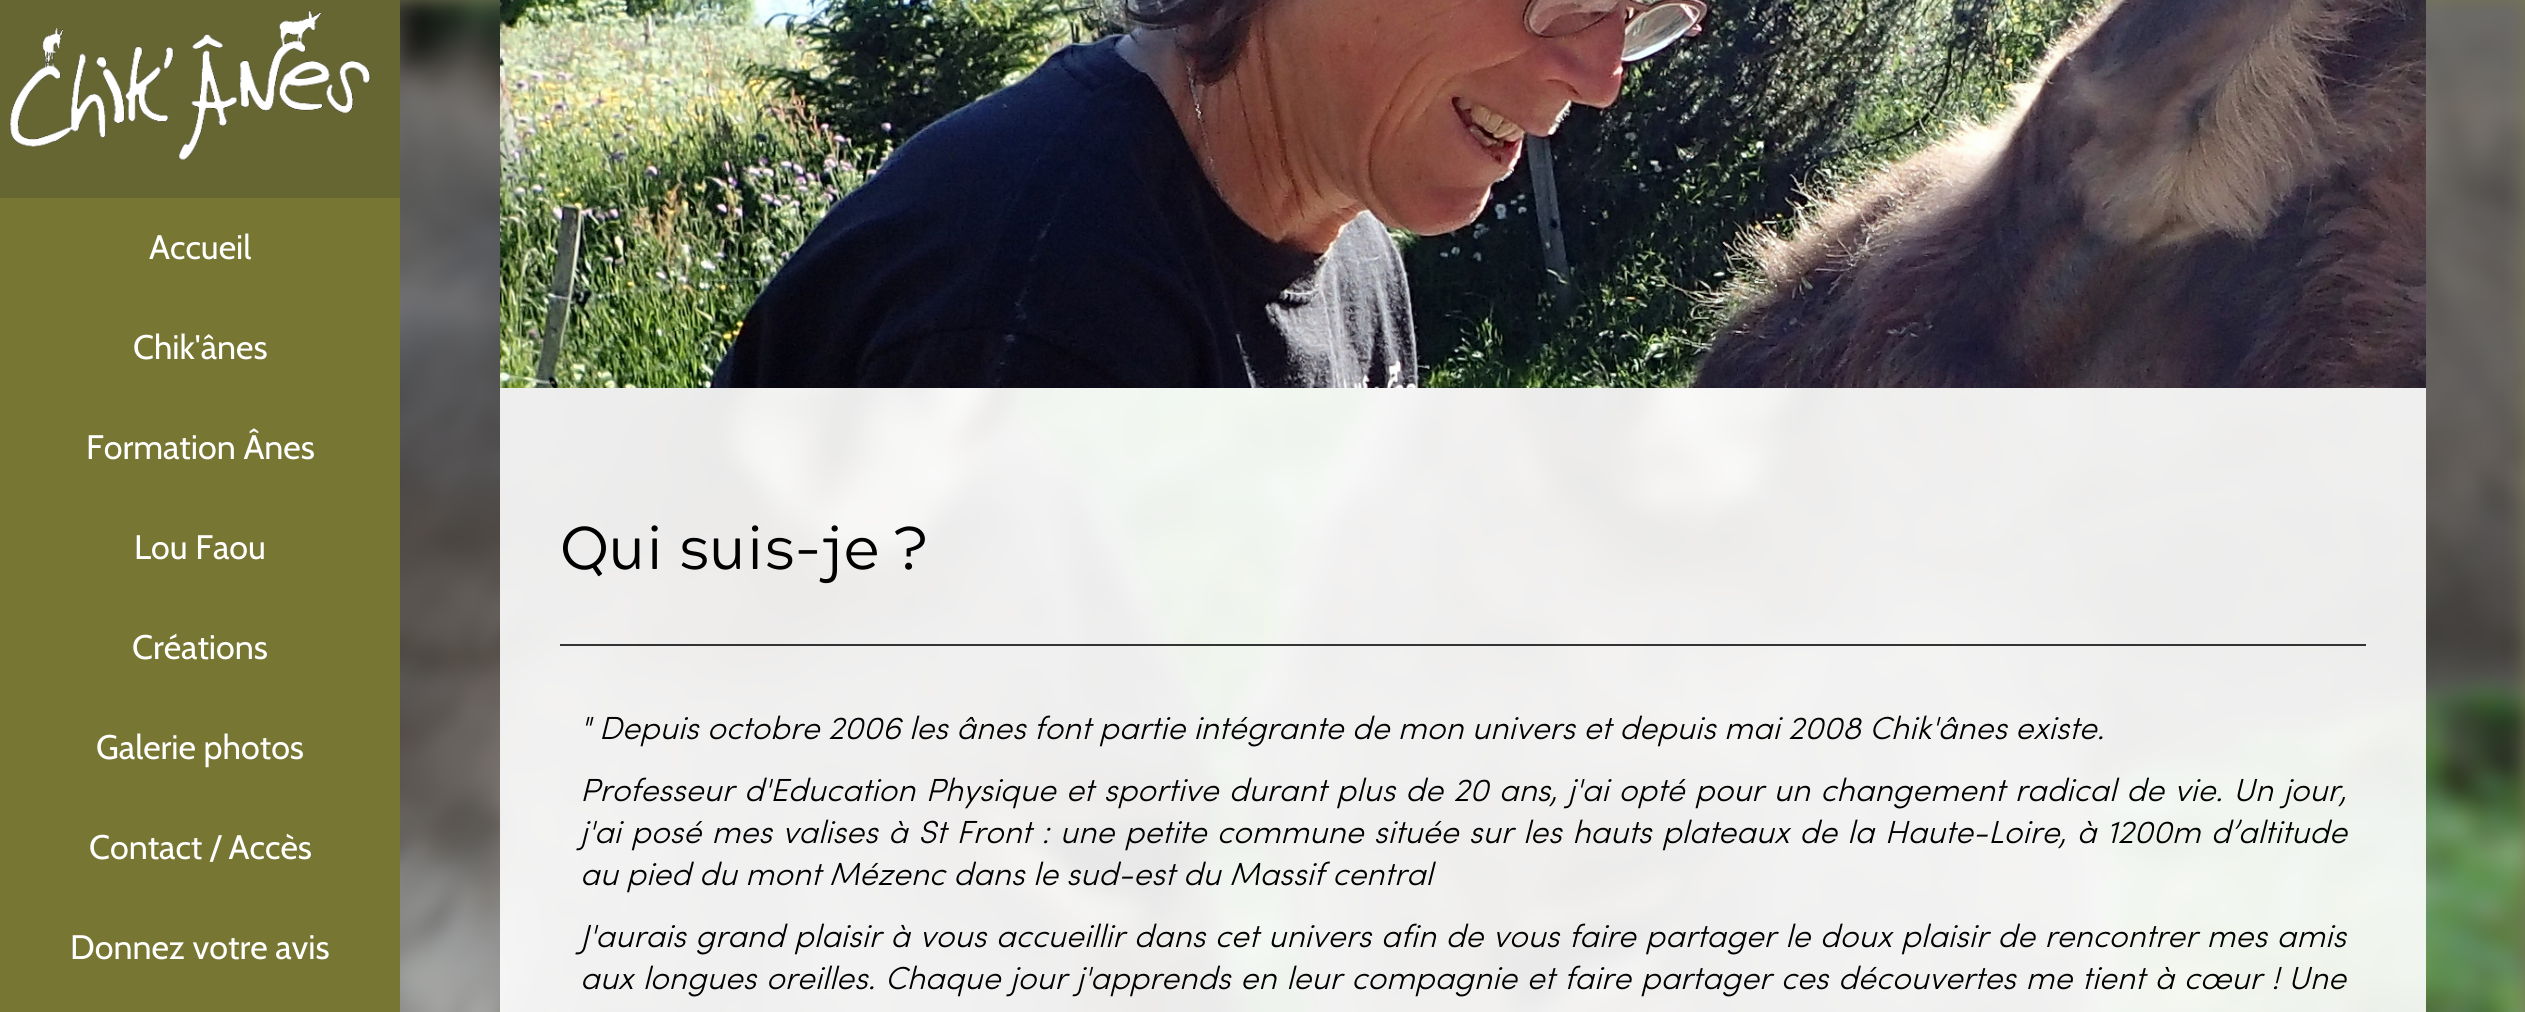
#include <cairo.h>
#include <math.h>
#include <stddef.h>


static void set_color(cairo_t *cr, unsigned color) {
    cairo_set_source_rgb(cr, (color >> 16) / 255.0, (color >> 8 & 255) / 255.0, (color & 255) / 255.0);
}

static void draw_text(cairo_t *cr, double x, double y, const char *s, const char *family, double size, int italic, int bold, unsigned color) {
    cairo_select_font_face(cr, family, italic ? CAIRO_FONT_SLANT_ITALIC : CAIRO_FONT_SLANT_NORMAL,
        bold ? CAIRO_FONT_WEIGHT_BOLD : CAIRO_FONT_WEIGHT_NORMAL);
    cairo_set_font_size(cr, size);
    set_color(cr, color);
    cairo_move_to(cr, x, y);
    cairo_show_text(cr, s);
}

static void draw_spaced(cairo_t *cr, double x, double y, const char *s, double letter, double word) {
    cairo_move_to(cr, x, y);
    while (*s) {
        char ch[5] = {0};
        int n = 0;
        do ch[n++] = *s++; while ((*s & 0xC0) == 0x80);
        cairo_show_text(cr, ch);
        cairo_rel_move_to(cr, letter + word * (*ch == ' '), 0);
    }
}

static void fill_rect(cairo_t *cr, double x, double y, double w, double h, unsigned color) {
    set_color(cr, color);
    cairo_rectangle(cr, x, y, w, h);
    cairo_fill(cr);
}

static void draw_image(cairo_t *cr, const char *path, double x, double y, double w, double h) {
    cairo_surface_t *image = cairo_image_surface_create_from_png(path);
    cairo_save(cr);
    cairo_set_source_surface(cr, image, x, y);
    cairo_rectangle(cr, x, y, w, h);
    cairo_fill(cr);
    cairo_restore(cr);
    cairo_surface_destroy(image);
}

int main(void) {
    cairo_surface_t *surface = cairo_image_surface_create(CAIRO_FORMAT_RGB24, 2525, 1012);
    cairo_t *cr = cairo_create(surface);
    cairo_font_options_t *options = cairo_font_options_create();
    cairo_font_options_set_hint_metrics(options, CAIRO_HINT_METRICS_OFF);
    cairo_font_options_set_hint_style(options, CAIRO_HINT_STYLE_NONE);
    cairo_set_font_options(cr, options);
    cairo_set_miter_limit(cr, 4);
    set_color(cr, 0x777755);
    cairo_paint(cr);
    fill_rect(cr, 0, 0, 400, 198, 0x666633);
    draw_image(cr, "assets/img1.png", 9, 9, 362, 152);
    fill_rect(cr, 0, 198, 400, 814, 0x777733);
    draw_text(cr, 149, 259, "Accueil", "Cabin", 34, 0, 0, 0xFFFFFF);
    draw_text(cr, 133, 359, "Chik'ânes", "Cabin", 34, 0, 0, 0xFFFFFF);
    draw_text(cr, 86, 459, "Formation Ânes", "Cabin", 34, 0, 0, 0xFFFFFF);
    draw_text(cr, 134, 559, "Lou Faou", "Cabin", 34, 0, 0, 0xFFFFFF);
    draw_text(cr, 132, 659, "Créations", "Cabin", 34, 0, 0, 0xFFFFFF);
    draw_text(cr, 96, 759, "Galerie photos", "Cabin", 34, 0, 0, 0xFFFFFF);
    draw_text(cr, 89, 859, "Contact / Accès", "Cabin", 34, 0, 0, 0xFFFFFF);
    draw_text(cr, 70, 959, "Donnez votre avis", "Cabin", 34, 0, 0, 0xFFFFFF);
    draw_image(cr, "assets/img2.png", 400, 0, 2125, 1012);
    cairo_set_source_rgba(cr, 1, 1, 1, 0.9);
    cairo_rectangle(cr, 500, 388, 1926, 624);
    cairo_fill(cr);
    draw_image(cr, "assets/img3.png", 500, 0, 1926, 388);
    fill_rect(cr, 560, 644, 1806, 2, 0x333333);
    draw_text(cr, 560, 569, "Qui suis-je ?", "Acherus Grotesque", 60, 0, 0, 0x000000);
    draw_text(cr, 580, 739, "\" Depuis octobre 2006 les ânes font partie intégrante de mon univers et depuis mai 2008 Chik'ânes existe.", "Sofia Light", 32, 1, 0, 0x000000);
    draw_spaced(cr, 580, 801, "Professeur d'Education Physique et sportive durant plus de 20 ans, j'ai opté pour un changement radical de vie. Un jour,", 0, 1.9);
    draw_spaced(cr, 580, 843, "j'ai posé mes valises à St Front : une petite commune située sur les hauts plateaux de la Haute-Loire, à 1200m d’altitude", 0, 2);
    draw_text(cr, 580, 885, "au pied du mont Mézenc dans le sud-est du Massif central", "Sofia Light", 32, 1, 0, 0x000000);
    draw_spaced(cr, 580, 947, "J'aurais grand plaisir à vous accueillir dans cet univers afin de vous faire partager le doux plaisir de rencontrer mes amis", 0, 1.25);
    draw_spaced(cr, 580, 989, "aux longues oreilles. Chaque jour j'apprends en leur compagnie et faire partager ces découvertes me tient à cœur !", 0, 1.4);
    draw_text(cr, 2288, 989, "Une", "Sofia Light", 32, 1, 0, 0x000000);
    cairo_surface_write_to_png(surface, "output.png");
    cairo_font_options_destroy(options);
    cairo_destroy(cr);
    cairo_surface_destroy(surface);
    return 0;
}
